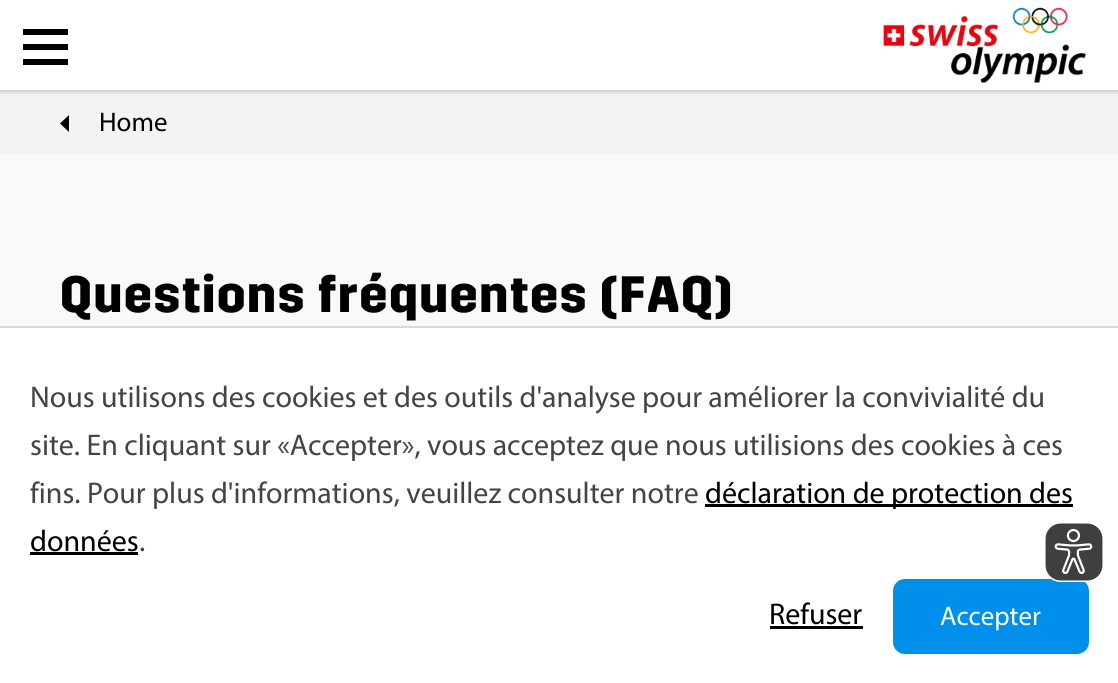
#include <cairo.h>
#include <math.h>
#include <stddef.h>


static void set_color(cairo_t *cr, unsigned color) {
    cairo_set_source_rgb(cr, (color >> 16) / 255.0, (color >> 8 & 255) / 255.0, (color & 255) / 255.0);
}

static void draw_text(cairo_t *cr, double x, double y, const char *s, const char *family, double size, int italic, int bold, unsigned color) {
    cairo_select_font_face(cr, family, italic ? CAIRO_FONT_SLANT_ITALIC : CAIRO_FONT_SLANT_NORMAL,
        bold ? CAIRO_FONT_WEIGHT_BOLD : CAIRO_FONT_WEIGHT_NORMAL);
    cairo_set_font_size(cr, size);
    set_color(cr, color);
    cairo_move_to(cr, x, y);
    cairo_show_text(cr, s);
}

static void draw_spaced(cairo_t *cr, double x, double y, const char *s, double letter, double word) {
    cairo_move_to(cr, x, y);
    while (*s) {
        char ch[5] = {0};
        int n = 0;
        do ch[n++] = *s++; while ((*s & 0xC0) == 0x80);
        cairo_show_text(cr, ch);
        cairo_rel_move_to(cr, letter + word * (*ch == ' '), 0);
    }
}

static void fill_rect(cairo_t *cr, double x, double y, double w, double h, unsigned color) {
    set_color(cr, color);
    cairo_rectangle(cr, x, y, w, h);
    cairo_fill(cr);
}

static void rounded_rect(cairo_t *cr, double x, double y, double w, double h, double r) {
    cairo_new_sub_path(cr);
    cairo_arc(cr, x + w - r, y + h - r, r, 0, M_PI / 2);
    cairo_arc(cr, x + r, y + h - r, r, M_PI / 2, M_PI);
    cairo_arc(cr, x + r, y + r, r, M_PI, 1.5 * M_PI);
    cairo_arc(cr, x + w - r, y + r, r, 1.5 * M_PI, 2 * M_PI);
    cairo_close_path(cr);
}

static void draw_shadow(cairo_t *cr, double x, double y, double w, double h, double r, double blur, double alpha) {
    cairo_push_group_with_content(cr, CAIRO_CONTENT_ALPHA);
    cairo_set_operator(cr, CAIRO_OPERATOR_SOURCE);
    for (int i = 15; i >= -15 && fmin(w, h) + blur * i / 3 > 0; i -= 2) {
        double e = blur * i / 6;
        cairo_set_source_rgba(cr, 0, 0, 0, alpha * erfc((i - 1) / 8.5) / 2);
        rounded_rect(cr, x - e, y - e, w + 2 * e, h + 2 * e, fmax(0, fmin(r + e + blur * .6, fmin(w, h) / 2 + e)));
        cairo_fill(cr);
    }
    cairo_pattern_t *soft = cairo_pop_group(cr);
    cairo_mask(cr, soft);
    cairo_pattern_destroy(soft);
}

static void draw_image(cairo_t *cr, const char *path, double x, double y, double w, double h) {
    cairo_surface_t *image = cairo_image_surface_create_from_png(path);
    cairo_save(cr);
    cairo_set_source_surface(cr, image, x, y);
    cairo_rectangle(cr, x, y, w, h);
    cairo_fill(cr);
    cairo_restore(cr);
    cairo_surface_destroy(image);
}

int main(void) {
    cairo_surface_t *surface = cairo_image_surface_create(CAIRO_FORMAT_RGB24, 1118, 683);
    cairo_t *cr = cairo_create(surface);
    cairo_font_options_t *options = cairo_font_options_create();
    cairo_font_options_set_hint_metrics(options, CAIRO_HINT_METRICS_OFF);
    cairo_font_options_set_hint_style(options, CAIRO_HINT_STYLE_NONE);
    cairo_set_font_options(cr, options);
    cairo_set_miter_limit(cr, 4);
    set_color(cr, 0xF9F9F9);
    cairo_paint(cr);
    fill_rect(cr, 0, 90, 1118, 63, 0xF3F3F3);
    set_color(cr, 0x000000);
    draw_shadow(cr, 0, 2, 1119, 90, 0, 2, 0.2);
    fill_rect(cr, 0, 0, 1118, 90, 0xFFFFFF);
    fill_rect(cr, 23, 44, 45, 6, 0x000000);
    fill_rect(cr, 23, 29, 45, 6, 0x000000);
    fill_rect(cr, 23, 59, 45, 6, 0x000000);
    draw_image(cr, "assets/img1.png", 883, 7, 203, 76);
    cairo_new_path(cr);
    cairo_move_to(cr, 69, 132);
    cairo_line_to(cr, 60, 123.5);
    cairo_line_to(cr, 69, 115);
    cairo_close_path(cr);
    cairo_fill(cr);
    draw_text(cr, 99, 131, "Home", "Myriad", 27, 0, 0, 0x000000);
    cairo_select_font_face(cr, "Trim", CAIRO_FONT_SLANT_NORMAL, CAIRO_FONT_WEIGHT_BOLD);
    cairo_set_font_size(cr, 51);
    draw_spaced(cr, 60, 312, "Questions fréquentes (FAQ)", 1.5, 0);
    fill_rect(cr, 0, 328, 1118, 355, 0xFFFFFF);
    fill_rect(cr, 0, 326, 1118, 2, 0xDADADA);
    draw_text(cr, 30, 407, "Nous utilisons des cookies et des outils d'analyse pour améliorer la convivialité du", "Myriad", 30, 0, 0, 0x444444);
    draw_text(cr, 30, 455, "site. En cliquant sur «Accepter», vous acceptez que nous utilisions des cookies à ces", "Myriad", 30, 0, 0, 0x444444);
    draw_text(cr, 30, 503, "fins. Pour plus d'informations, veuillez consulter notre", "Myriad", 30, 0, 0, 0x444444);
    fill_rect(cr, 705, 504, 368, 3, 0x000000);
    draw_text(cr, 705, 503, "déclaration de protection des", "Myriad", 30, 0, 0, 0x000000);
    draw_text(cr, 30, 551, "données", "Myriad", 30, 0, 0, 0x000000);
    fill_rect(cr, 30, 552, 108, 3, 0x000000);
    draw_text(cr, 139, 551, ".", "Myriad", 30, 0, 0, 0x444444);
    draw_text(cr, 769, 624, "Refuser", "Myriad", 30, 0, 0, 0x000000);
    fill_rect(cr, 770, 626, 93, 3, 0x000000);
    set_color(cr, 0x008FEA);
    rounded_rect(cr, 894.5, 580.5, 193, 72, 10.5);
    cairo_fill_preserve(cr);
    cairo_set_line_width(cr, 3);
    cairo_stroke(cr);
    draw_text(cr, 940, 625, "Accepter", "Myriad", 27, 0, 0, 0xFFFFFF);
    draw_image(cr, "assets/img2.png", 1045, 523, 58, 59);
    cairo_surface_write_to_png(surface, "output.png");
    cairo_font_options_destroy(options);
    cairo_destroy(cr);
    cairo_surface_destroy(surface);
    return 0;
}
